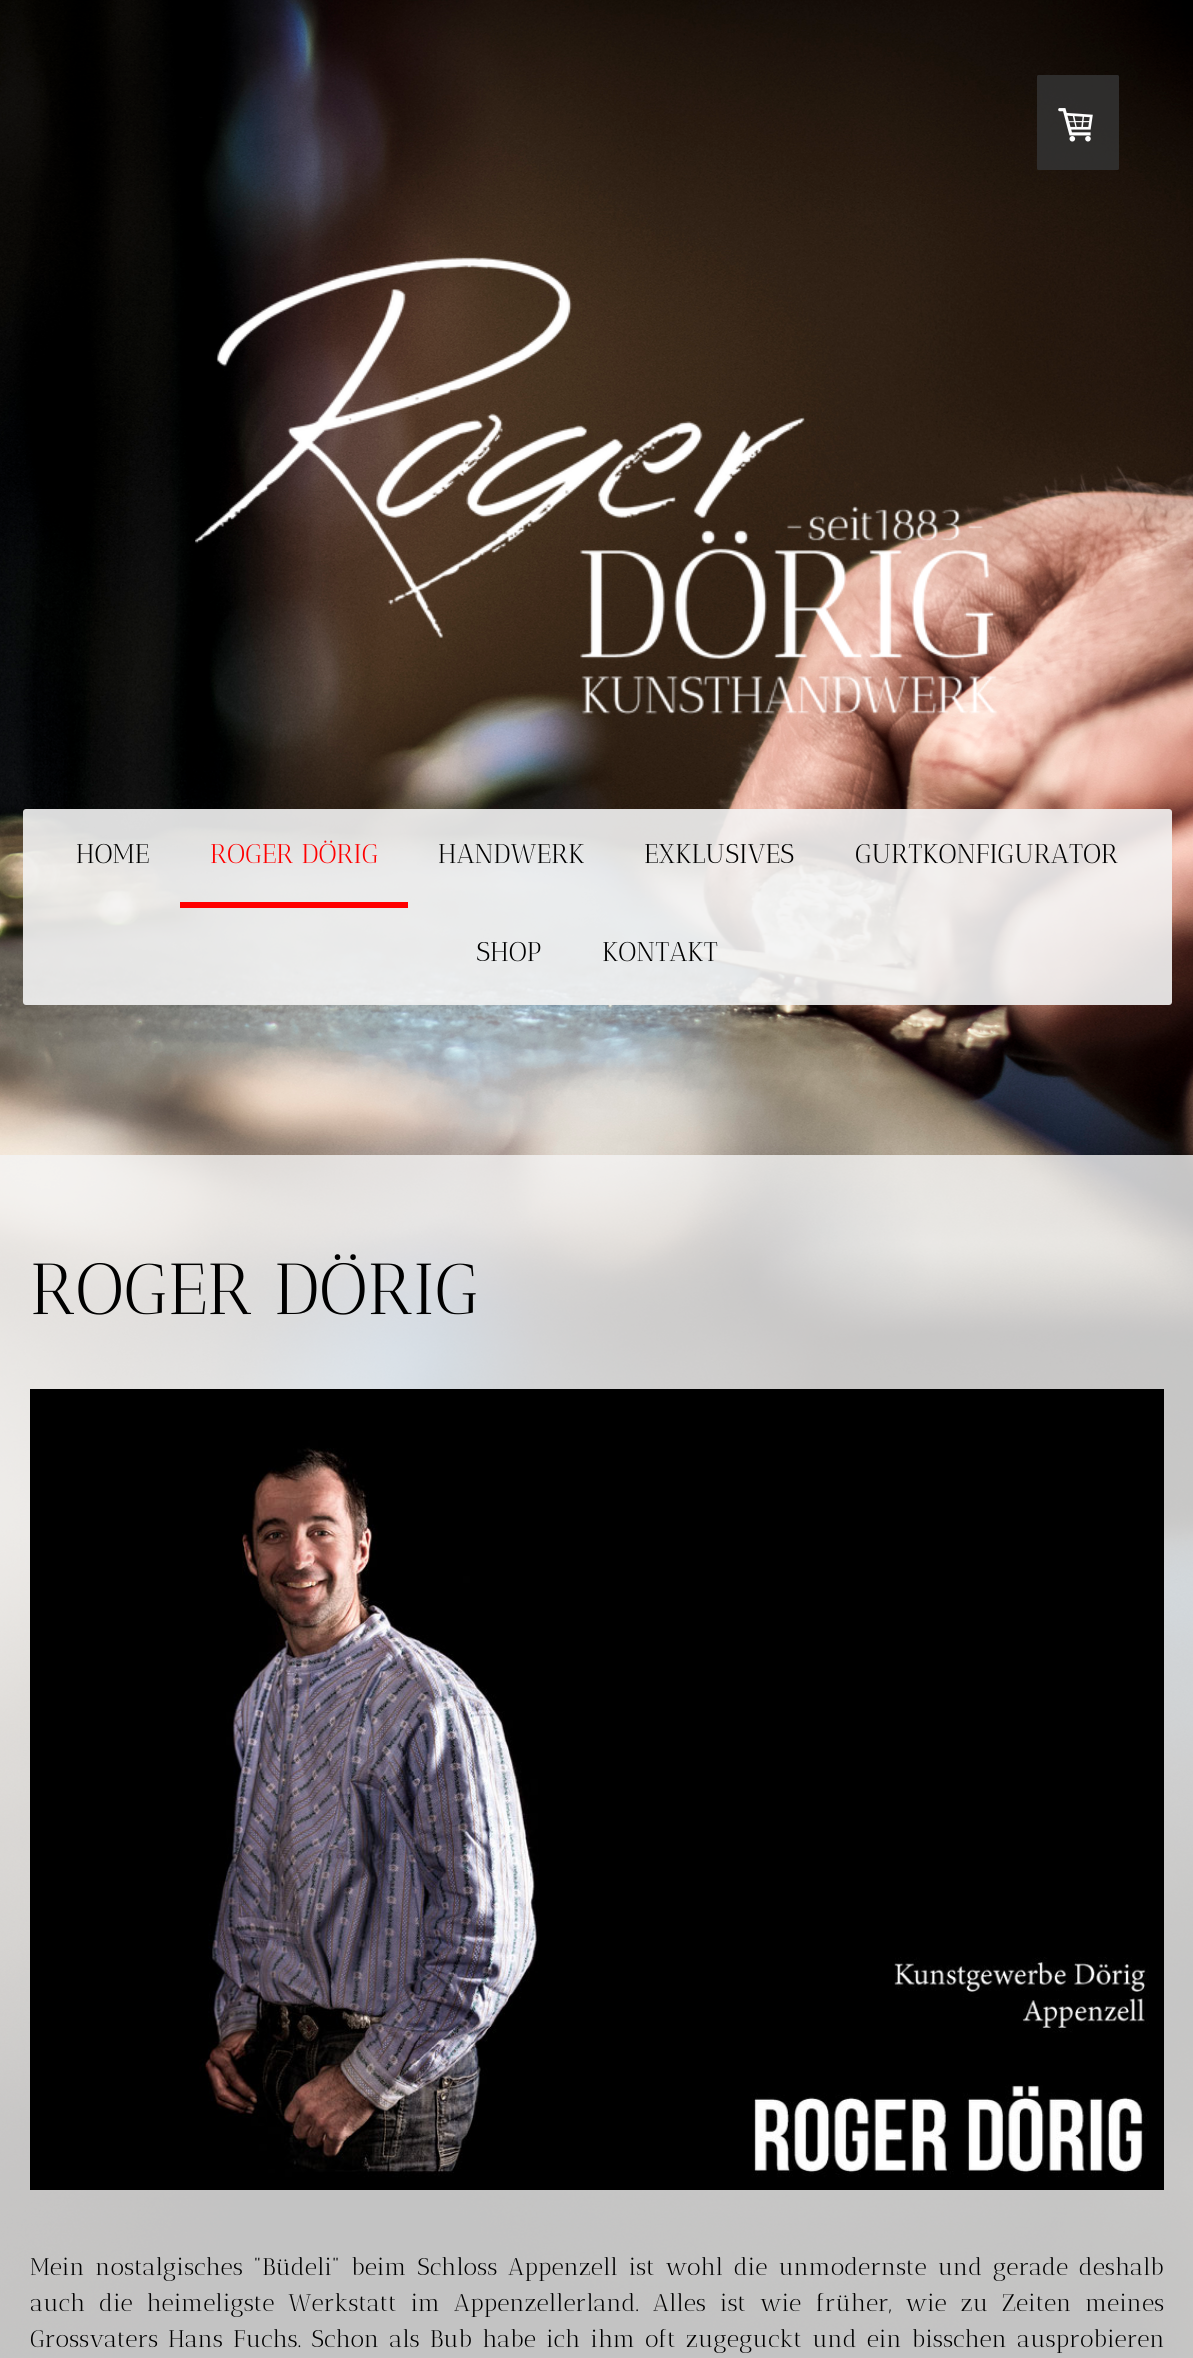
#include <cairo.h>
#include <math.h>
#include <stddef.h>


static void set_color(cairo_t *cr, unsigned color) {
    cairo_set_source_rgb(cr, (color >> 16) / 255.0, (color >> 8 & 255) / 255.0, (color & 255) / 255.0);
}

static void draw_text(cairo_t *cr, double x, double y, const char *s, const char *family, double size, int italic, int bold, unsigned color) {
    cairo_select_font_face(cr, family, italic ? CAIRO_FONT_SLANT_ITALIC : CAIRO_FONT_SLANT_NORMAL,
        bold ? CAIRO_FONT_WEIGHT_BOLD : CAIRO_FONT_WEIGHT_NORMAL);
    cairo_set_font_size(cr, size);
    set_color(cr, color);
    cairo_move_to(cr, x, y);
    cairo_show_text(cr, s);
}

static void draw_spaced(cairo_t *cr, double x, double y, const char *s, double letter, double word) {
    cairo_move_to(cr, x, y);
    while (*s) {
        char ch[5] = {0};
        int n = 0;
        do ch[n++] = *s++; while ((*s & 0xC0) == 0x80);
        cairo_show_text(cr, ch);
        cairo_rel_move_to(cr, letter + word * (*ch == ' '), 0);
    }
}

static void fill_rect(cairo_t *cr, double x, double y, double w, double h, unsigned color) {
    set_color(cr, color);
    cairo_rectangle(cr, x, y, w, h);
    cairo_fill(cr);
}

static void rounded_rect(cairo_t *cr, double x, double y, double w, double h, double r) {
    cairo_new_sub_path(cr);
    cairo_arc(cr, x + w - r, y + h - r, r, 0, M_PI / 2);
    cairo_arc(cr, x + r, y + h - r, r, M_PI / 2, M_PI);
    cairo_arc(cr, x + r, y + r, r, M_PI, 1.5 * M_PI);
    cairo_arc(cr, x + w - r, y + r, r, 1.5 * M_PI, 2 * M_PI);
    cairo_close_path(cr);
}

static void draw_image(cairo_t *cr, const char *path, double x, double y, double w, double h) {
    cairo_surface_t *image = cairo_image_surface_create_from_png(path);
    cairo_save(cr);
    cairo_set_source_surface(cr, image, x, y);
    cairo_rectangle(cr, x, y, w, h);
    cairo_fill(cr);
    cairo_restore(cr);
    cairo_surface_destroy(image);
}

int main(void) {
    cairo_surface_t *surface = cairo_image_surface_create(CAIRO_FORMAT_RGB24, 1193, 2358);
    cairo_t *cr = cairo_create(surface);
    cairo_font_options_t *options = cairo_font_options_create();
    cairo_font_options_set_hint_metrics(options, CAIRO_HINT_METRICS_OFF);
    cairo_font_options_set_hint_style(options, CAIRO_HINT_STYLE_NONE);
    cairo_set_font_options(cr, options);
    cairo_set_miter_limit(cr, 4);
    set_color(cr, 0xFFFFFF);
    cairo_paint(cr);
    draw_image(cr, "assets/img1.png", 0, 0, 1193, 2358);
    cairo_set_source_rgba(cr, 0.2, 0.2, 0.2, 0.85);
    rounded_rect(cr, 1037, 75, 82, 95, 1.5);
    cairo_fill(cr);
    draw_image(cr, "assets/img2.png", 1058, 108, 35, 34);
    draw_image(cr, "assets/img3.png", 195, 257, 802, 458);
    cairo_set_source_rgba(cr, 0.953, 0.953, 0.953, 0.9);
    rounded_rect(cr, 23, 809, 1149, 196, 3);
    cairo_fill(cr);
    draw_text(cr, 76, 863, "HOME", "Antic Didone", 27, 0, 0, 0x000000);
    fill_rect(cr, 180, 902, 228, 6, 0xFF0000);
    draw_text(cr, 210, 863, "ROGER DÖRIG", "Antic Didone", 27, 0, 0, 0xFF0000);
    draw_text(cr, 438, 863, "HANDWERK", "Antic Didone", 27, 0, 0, 0x000000);
    draw_text(cr, 644, 863, "EXKLUSIVES", "Antic Didone", 27, 0, 0, 0x000000);
    draw_text(cr, 855, 863, "GURTKONFIGURATOR", "Antic Didone", 27, 0, 0, 0x000000);
    draw_text(cr, 476, 961, "SHOP", "Antic Didone", 27, 0, 0, 0x000000);
    draw_text(cr, 602, 961, "KONTAKT", "Antic Didone", 27, 0, 0, 0x000000);
    cairo_set_source_rgba(cr, 0.953, 0.953, 0.953, 0.8);
    cairo_rectangle(cr, 0, 1155, 1193, 1203);
    cairo_fill(cr);
    draw_text(cr, 30, 1314, "ROGER DÖRIG", "Antic Didone", 72, 0, 0, 0x000000);
    draw_image(cr, "assets/img4.png", 30, 1389, 1134, 801);
    cairo_set_font_size(cr, 24);
    draw_spaced(cr, 30, 2275, "Mein nostalgisches \"Büdeli\" beim Schloss Appenzell ist wohl die unmodernste und gerade deshalb", 0, 3.6);
    draw_spaced(cr, 30, 2311, "auch die heimeligste Werkstatt im Appenzellerland. Alles ist wie", 0, 6.75);
    draw_spaced(cr, 816, 2311, "früher, wie zu Zeiten meines", 0, 6.75);
    draw_spaced(cr, 30, 2347, "Grossvaters Hans Fuchs. Schon als Bub habe ich ihm oft zugeguckt und ein bisschen ausprobieren", 0, 3);
    cairo_surface_write_to_png(surface, "output.png");
    cairo_font_options_destroy(options);
    cairo_destroy(cr);
    cairo_surface_destroy(surface);
    return 0;
}
